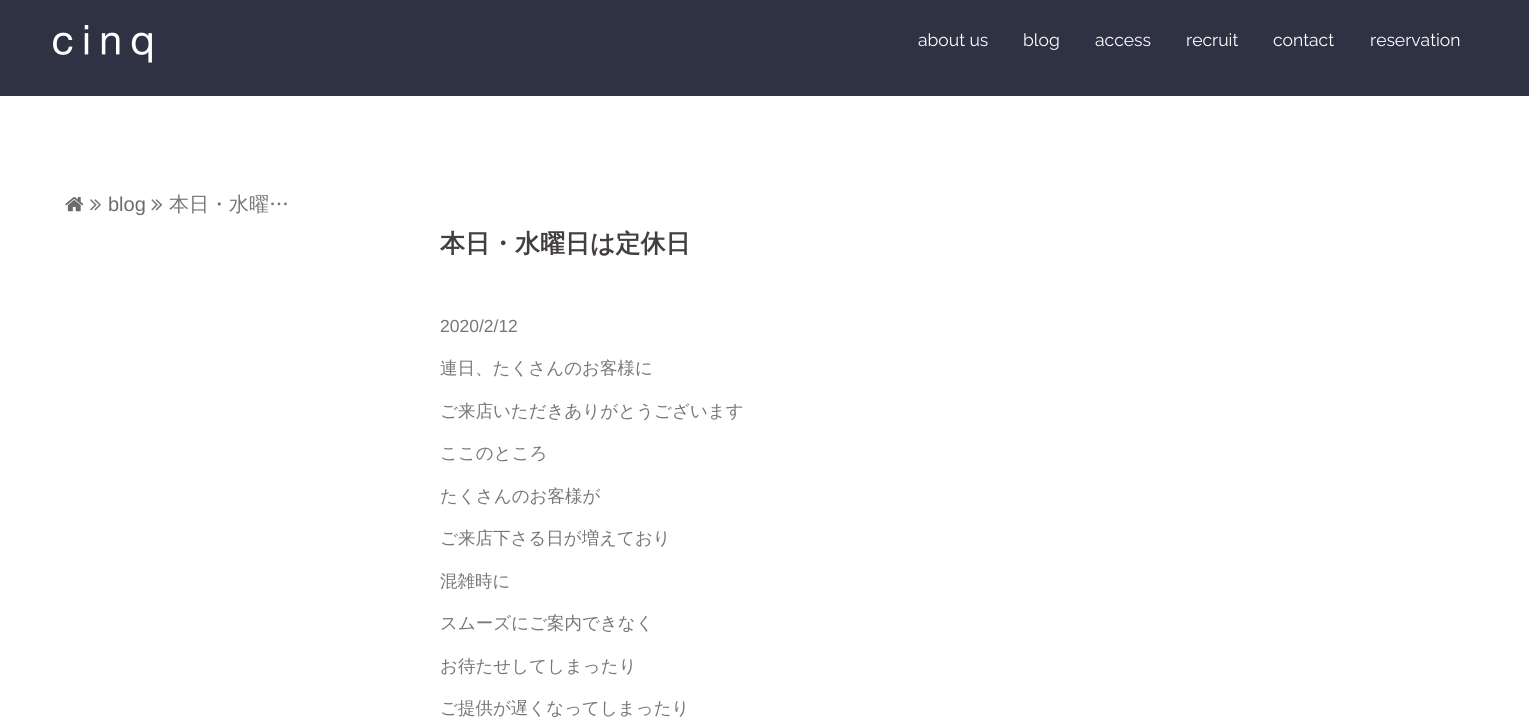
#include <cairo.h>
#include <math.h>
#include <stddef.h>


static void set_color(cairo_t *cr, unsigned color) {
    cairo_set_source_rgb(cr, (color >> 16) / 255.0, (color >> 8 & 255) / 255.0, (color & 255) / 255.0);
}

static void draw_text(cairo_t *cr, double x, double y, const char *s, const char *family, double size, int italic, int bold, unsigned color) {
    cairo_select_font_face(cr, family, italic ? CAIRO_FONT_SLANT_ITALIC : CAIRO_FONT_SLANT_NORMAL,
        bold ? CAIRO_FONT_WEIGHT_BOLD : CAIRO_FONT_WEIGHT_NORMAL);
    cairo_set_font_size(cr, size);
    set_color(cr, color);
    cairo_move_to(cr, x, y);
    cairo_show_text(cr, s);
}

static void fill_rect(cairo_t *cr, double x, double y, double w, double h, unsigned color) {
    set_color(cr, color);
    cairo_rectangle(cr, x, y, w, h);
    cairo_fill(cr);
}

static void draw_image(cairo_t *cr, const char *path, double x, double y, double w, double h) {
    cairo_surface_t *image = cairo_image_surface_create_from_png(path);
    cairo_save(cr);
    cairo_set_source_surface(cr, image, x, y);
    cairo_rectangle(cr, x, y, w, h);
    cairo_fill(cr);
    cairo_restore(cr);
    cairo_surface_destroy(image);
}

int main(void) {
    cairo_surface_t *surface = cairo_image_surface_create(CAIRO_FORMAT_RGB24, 1529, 720);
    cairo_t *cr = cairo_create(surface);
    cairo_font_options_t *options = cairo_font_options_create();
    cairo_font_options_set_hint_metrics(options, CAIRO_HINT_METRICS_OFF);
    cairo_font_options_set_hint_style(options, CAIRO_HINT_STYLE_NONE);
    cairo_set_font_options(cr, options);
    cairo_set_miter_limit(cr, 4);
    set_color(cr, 0xFFFFFF);
    cairo_paint(cr);
    fill_rect(cr, 0, 0, 1529, 96, 0x2F3243);
    draw_image(cr, "assets/img1.png", 53, 25, 99, 38);
    draw_text(cr, 918, 46, "about us", "Raleway", 17.5, 0, 0, 0xFFFFFF);
    draw_text(cr, 1023, 46, "blog", "Raleway", 17.5, 0, 0, 0xFFFFFF);
    draw_text(cr, 1095, 46, "access", "Raleway", 17.5, 0, 0, 0xFFFFFF);
    draw_text(cr, 1186, 46, "recruit", "Raleway", 17.5, 0, 0, 0xFFFFFF);
    draw_text(cr, 1273, 46, "contact", "Raleway", 17.5, 0, 0, 0xFFFFFF);
    draw_text(cr, 1370, 46, "reservation", "Raleway", 17.5, 0, 0, 0xFFFFFF);
    draw_image(cr, "assets/img2.png", 65, 196, 19, 16);
    draw_image(cr, "assets/img3.png", 90, 199, 11, 12);
    draw_text(cr, 108, 211, "blog", "Liberation Sans", 20, 0, 0, 0x6B6B6B);
    draw_image(cr, "assets/img4.png", 151, 199, 12, 12);
    draw_text(cr, 169, 211, "本日・水曜…", "WenQuanYi Zen Hei Medium", 20, 0, 0, 0x767676);
    draw_text(cr, 440, 252, "本日・水曜日は定休日", "WenQuanYi Zen Hei", 25, 0, 1, 0x443F3F);
    draw_text(cr, 440, 332, "2020/2/12", "Liberation Sans", 17.5, 0, 0, 0x767676);
    draw_text(cr, 440, 374, "連日、たくさんのお客様に", "WenQuanYi Zen Hei Medium", 17.5, 0, 0, 0x767676);
    draw_text(cr, 440, 417, "ご来店いただきありがとうございます", "WenQuanYi Zen Hei Medium", 17.5, 0, 0, 0x767676);
    draw_text(cr, 440, 459, "ここのところ", "WenQuanYi Zen Hei Medium", 17.5, 0, 0, 0x767676);
    draw_text(cr, 440, 502, "たくさんのお客様が", "WenQuanYi Zen Hei Medium", 17.5, 0, 0, 0x767676);
    draw_text(cr, 440, 544, "ご来店下さる日が増えており", "WenQuanYi Zen Hei Medium", 17.5, 0, 0, 0x767676);
    draw_text(cr, 440, 587, "混雑時に", "WenQuanYi Zen Hei Medium", 17.5, 0, 0, 0x767676);
    draw_text(cr, 440, 629, "スムーズにご案内できなく", "WenQuanYi Zen Hei Medium", 17.5, 0, 0, 0x767676);
    draw_text(cr, 440, 672, "お待たせしてしまったり", "WenQuanYi Zen Hei Medium", 17.5, 0, 0, 0x767676);
    draw_text(cr, 440, 714, "ご提供が遅くなってしまったり", "WenQuanYi Zen Hei Medium", 17.5, 0, 0, 0x767676);
    cairo_surface_write_to_png(surface, "output.png");
    cairo_font_options_destroy(options);
    cairo_destroy(cr);
    cairo_surface_destroy(surface);
    return 0;
}
